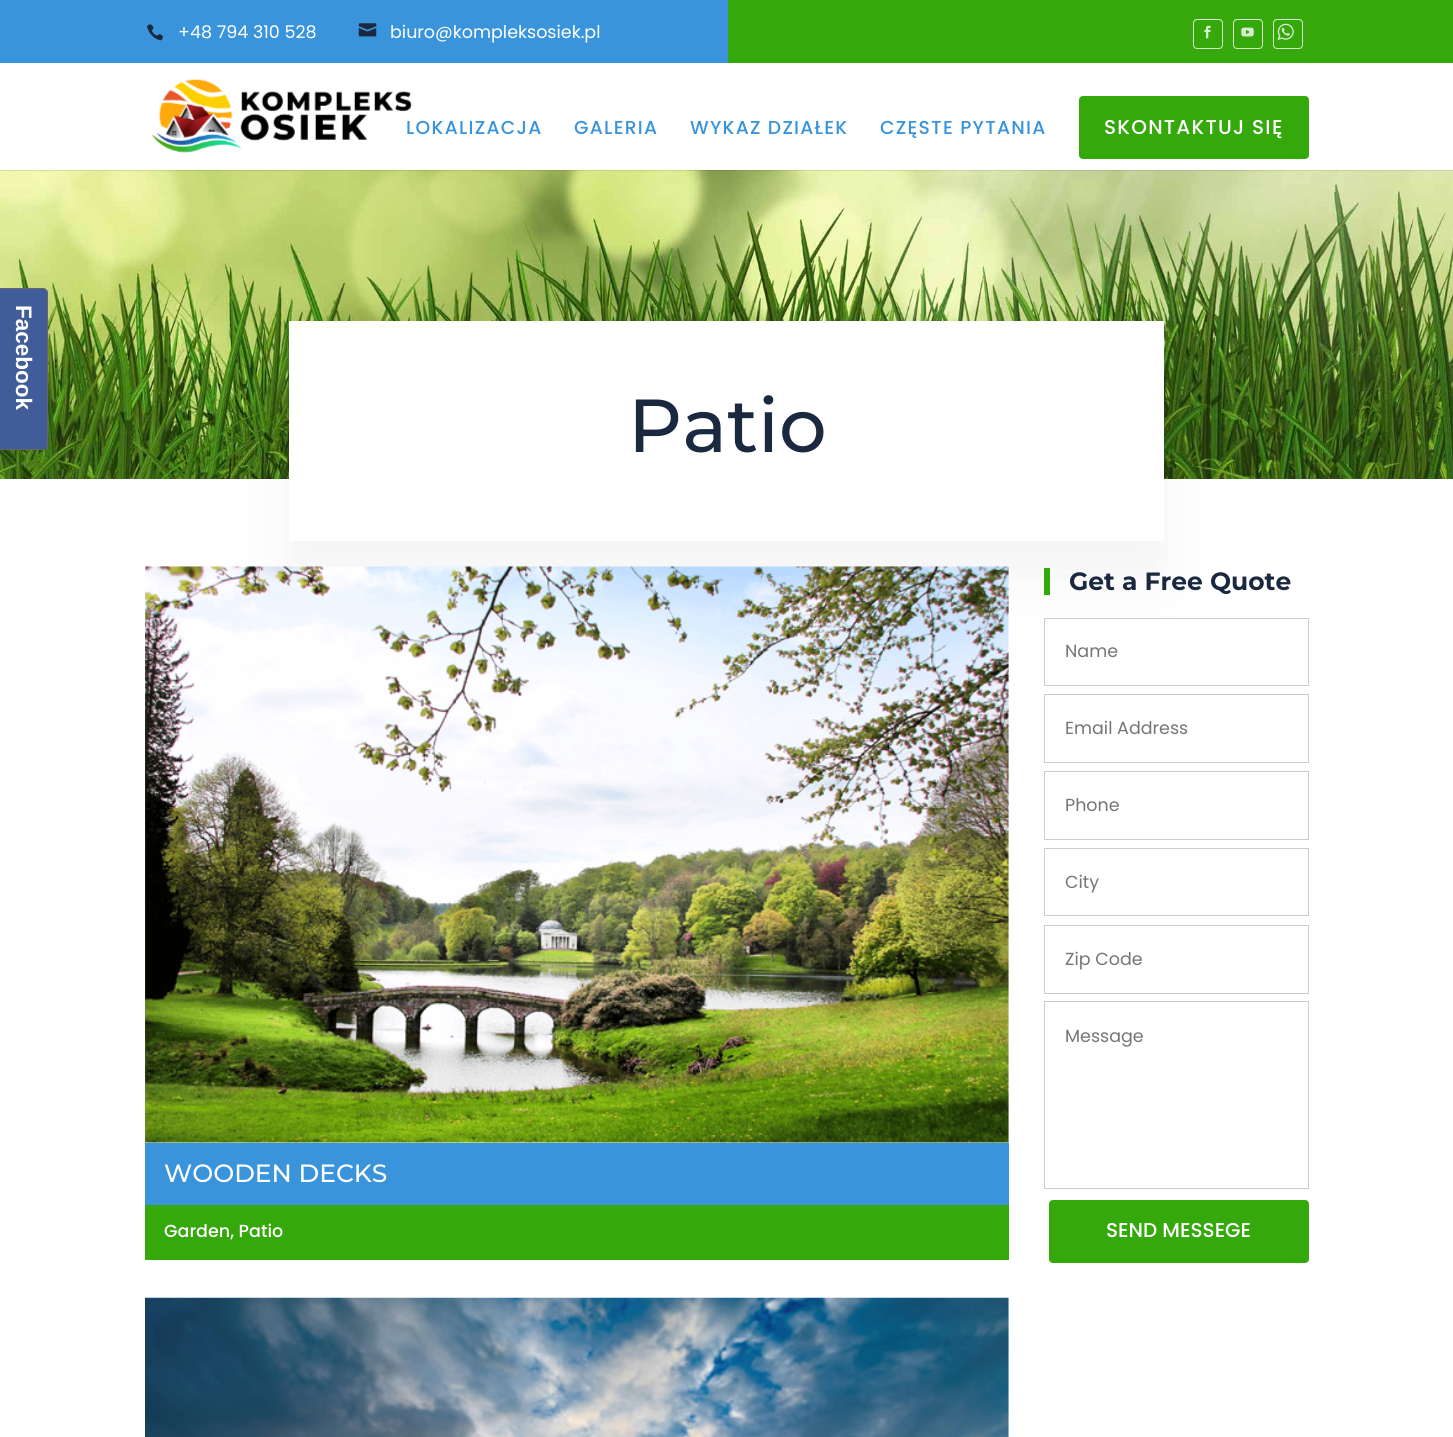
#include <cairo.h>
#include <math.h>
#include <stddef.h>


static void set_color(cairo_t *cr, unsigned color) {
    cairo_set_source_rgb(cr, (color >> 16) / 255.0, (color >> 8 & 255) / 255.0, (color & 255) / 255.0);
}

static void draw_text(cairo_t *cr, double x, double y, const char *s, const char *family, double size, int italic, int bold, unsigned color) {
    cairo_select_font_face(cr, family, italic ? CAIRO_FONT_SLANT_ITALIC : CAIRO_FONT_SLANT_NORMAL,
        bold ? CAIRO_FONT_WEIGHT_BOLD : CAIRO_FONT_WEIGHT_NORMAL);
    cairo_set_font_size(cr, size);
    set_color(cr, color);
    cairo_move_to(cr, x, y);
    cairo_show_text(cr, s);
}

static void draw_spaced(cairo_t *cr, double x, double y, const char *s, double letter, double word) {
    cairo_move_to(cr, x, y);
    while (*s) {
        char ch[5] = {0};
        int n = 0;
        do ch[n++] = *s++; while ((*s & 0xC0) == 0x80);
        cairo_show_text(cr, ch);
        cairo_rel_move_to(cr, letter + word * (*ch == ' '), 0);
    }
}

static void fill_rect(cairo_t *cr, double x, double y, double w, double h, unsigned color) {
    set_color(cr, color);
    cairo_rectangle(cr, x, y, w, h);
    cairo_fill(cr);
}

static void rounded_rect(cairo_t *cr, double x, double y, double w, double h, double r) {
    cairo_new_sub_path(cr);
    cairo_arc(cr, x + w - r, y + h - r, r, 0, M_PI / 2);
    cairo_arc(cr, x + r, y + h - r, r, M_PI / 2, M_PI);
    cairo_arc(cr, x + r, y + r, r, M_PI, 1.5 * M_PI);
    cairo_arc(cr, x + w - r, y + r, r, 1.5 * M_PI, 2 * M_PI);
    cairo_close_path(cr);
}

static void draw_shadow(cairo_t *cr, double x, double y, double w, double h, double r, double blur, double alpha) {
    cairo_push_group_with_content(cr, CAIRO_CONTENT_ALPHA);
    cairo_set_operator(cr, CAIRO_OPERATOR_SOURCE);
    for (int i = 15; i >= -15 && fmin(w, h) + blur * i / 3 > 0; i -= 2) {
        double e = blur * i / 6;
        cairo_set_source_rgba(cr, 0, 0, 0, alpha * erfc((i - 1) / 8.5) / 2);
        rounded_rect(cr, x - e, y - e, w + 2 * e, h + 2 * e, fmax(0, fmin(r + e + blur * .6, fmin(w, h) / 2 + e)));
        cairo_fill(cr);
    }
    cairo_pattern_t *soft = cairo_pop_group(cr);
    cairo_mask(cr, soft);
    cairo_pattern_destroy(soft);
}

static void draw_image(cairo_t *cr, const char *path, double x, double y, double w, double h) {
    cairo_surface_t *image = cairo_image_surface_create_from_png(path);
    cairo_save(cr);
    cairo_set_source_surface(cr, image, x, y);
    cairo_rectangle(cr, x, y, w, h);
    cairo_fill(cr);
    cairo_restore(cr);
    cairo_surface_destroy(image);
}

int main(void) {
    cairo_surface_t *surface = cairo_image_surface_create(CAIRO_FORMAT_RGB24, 1453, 1437);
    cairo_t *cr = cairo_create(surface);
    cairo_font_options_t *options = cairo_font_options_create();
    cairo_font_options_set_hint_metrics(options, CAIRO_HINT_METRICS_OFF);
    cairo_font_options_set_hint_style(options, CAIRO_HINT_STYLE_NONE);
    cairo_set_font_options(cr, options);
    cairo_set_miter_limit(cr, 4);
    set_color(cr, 0xFFFFFF);
    cairo_paint(cr);
    draw_image(cr, "assets/img7.png", 0, 170, 1453, 309);
    set_color(cr, 0x405D9A);
    cairo_new_path(cr);
    cairo_move_to(cr, -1.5, 288.5);
    cairo_line_to(cr, 43, 288.5);
    cairo_curve_to(cr, 45.5, 288.5, 47.5, 290.5, 47.5, 293);
    cairo_line_to(cr, 47.5, 445);
    cairo_curve_to(cr, 47.5, 447.5, 45.5, 449.5, 43, 449.5);
    cairo_line_to(cr, -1.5, 449.5);
    cairo_close_path(cr);
    cairo_fill_preserve(cr);
    set_color(cr, 0x666666);
    cairo_set_line_width(cr, 1);
    cairo_stroke(cr);
    cairo_save(cr);
    cairo_translate(cr, 16, 305);
    cairo_rotate(cr, 90 * M_PI / 180);
    draw_text(cr, 0, 0, "Facebook", "Liberation Sans", 22.5, 0, 1, 0xFFFFFF);
    cairo_restore(cr);
    fill_rect(cr, 728, 0, 725, 63, 0x35A80B);
    fill_rect(cr, 0, 0, 728, 63, 0x3994DB);
    draw_image(cr, "assets/img1.png", 147, 24, 16, 17);
    draw_text(cr, 178, 38, "+48 794 310 528", "Poppins", 17.5, 0, 0, 0xFFFFFF);
    draw_image(cr, "assets/img2.png", 358, 23, 19, 14);
    draw_text(cr, 390, 38, "biuro@kompleksosiek.pl", "Poppins", 17.5, 0, 0, 0xFFFFFF);
    rounded_rect(cr, 1193.5, 19.5, 29, 29, 3.5);
    set_color(cr, 0xD7EECE);
    cairo_stroke(cr);
    draw_image(cr, "assets/img3.png", 1204, 25, 7, 14);
    rounded_rect(cr, 1233.5, 19.5, 29, 29, 3.5);
    cairo_stroke(cr);
    draw_image(cr, "assets/img4.png", 1241, 27, 13, 10);
    rounded_rect(cr, 1273.5, 19.5, 29, 29, 3.5);
    cairo_stroke(cr);
    draw_image(cr, "assets/img5.png", 1277, 23, 17, 18);
    cairo_set_source_rgba(cr, 0, 0, 0, 0.1);
    cairo_new_path(cr);
    cairo_move_to(cr, 0, 170);
    cairo_line_to(cr, 0, 171);
    cairo_line_to(cr, 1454, 171);
    cairo_line_to(cr, 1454, 64);
    cairo_line_to(cr, 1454, 170);
    cairo_close_path(cr);
    cairo_fill(cr);
    draw_image(cr, "assets/img6.png", 151, 79, 261, 74);
    cairo_select_font_face(cr, "Poppins Medium", CAIRO_FONT_SLANT_NORMAL, CAIRO_FONT_WEIGHT_NORMAL);
    cairo_set_font_size(cr, 18.75);
    set_color(cr, 0x3994DB);
    draw_spaced(cr, 406, 134, "LOKALIZACJA", 1.25, 0);
    draw_spaced(cr, 574, 134, "GALERIA", 1.25, 0);
    draw_spaced(cr, 690, 134, "WYKAZ DZIAŁEK", 1.25, 0);
    draw_spaced(cr, 880, 134, "CZĘSTE PYTANIA", 1.25, 0);
    set_color(cr, 0x35A80B);
    rounded_rect(cr, 1079, 96, 230, 63, 4);
    cairo_fill(cr);
    cairo_set_font_size(cr, 20);
    set_color(cr, 0xFFFFFF);
    draw_spaced(cr, 1104, 134, "SKONTAKTUJ SIĘ", 1.25, 0);
    set_color(cr, 0x000000);
    draw_shadow(cr, 289, 355, 875, 220, 0, 31, 0.05);
    fill_rect(cr, 289, 321, 875, 220, 0xFFFFFF);
    draw_text(cr, 628, 452, "Patio", "Montserrat Thin", 75, 0, 0, 0x1A2940);
    draw_image(cr, "assets/img8.png", 145, 566, 864, 577);
    fill_rect(cr, 145, 1143, 864, 62, 0x3994DB);
    draw_text(cr, 164, 1182, "WOODEN DECKS", "Montserrat Thin", 25, 0, 0, 0xFFFFFF);
    fill_rect(cr, 145, 1205, 864, 55, 0x35A80B);
    draw_text(cr, 164, 1237, "Garden, Patio", "Poppins Medium", 17.5, 0, 0, 0xFFFFFF);
    draw_image(cr, "assets/img9.png", 145, 1297, 864, 140);
    fill_rect(cr, 1044, 568, 6, 27, 0x35A80B);
    draw_text(cr, 1069, 590, "Get a Free Quote", "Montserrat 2 Thin", 25, 0, 0, 0x1A2940);
    cairo_rectangle(cr, 1044.5, 618.5, 264, 67);
    set_color(cr, 0xCCCCCC);
    cairo_stroke(cr);
    draw_text(cr, 1065, 657, "Name", "Poppins", 17.5, 0, 0, 0x757575);
    cairo_rectangle(cr, 1044.5, 694.5, 264, 68);
    set_color(cr, 0xCCCCCC);
    cairo_stroke(cr);
    draw_text(cr, 1065, 734, "Email Address", "Poppins", 17.5, 0, 0, 0x757575);
    cairo_rectangle(cr, 1044.5, 771.5, 264, 68);
    set_color(cr, 0xCCCCCC);
    cairo_stroke(cr);
    draw_text(cr, 1065, 811, "Phone", "Poppins", 17.5, 0, 0, 0x757575);
    cairo_rectangle(cr, 1044.5, 848.5, 264, 67);
    set_color(cr, 0xCCCCCC);
    cairo_stroke(cr);
    draw_text(cr, 1065, 888, "City", "Poppins", 17.5, 0, 0, 0x757575);
    cairo_rectangle(cr, 1044.5, 925.5, 264, 68);
    set_color(cr, 0xCCCCCC);
    cairo_stroke(cr);
    draw_text(cr, 1065, 965, "Zip Code", "Poppins", 17.5, 0, 0, 0x757575);
    cairo_rectangle(cr, 1044.5, 1001.5, 264, 187);
    set_color(cr, 0xCCCCCC);
    cairo_stroke(cr);
    draw_text(cr, 1065, 1042, "Message", "Poppins", 17.5, 0, 0, 0x757575);
    set_color(cr, 0x35A80B);
    rounded_rect(cr, 1049, 1200, 260, 63, 4);
    cairo_fill(cr);
    draw_text(cr, 1106, 1237, "SEND MESSEGE", "Poppins Medium", 20, 0, 0, 0xFFFFFF);
    cairo_surface_write_to_png(surface, "output.png");
    cairo_font_options_destroy(options);
    cairo_destroy(cr);
    cairo_surface_destroy(surface);
    return 0;
}
